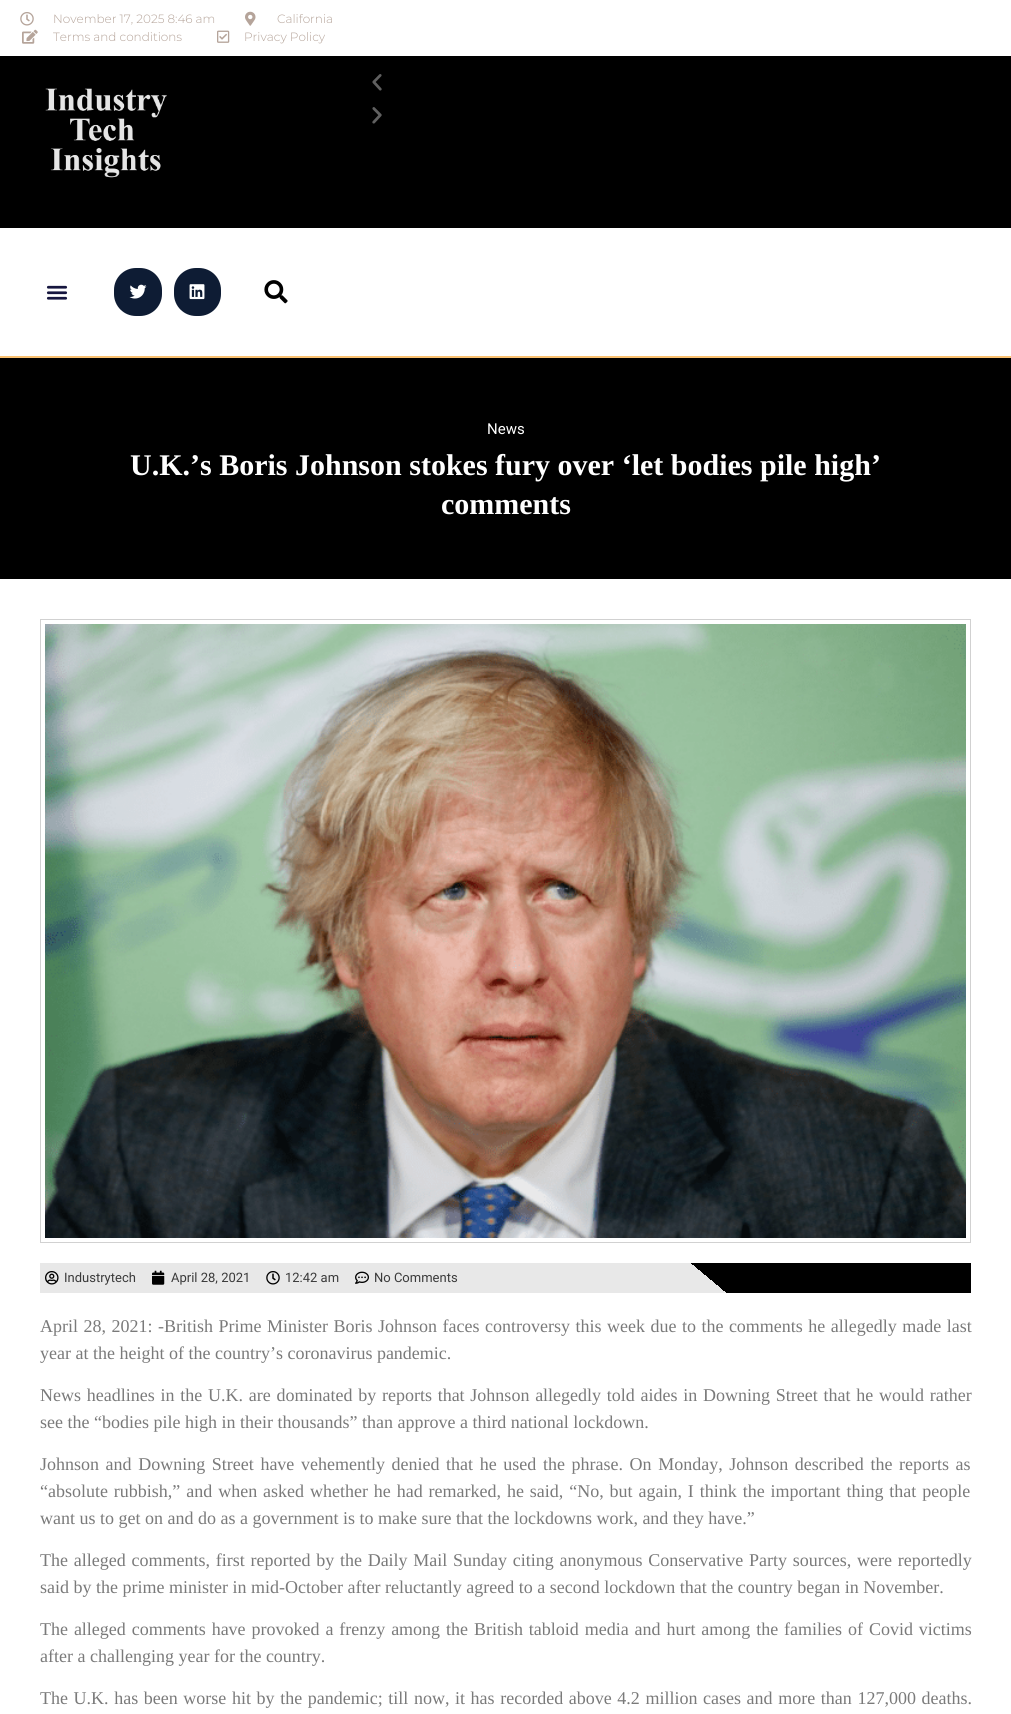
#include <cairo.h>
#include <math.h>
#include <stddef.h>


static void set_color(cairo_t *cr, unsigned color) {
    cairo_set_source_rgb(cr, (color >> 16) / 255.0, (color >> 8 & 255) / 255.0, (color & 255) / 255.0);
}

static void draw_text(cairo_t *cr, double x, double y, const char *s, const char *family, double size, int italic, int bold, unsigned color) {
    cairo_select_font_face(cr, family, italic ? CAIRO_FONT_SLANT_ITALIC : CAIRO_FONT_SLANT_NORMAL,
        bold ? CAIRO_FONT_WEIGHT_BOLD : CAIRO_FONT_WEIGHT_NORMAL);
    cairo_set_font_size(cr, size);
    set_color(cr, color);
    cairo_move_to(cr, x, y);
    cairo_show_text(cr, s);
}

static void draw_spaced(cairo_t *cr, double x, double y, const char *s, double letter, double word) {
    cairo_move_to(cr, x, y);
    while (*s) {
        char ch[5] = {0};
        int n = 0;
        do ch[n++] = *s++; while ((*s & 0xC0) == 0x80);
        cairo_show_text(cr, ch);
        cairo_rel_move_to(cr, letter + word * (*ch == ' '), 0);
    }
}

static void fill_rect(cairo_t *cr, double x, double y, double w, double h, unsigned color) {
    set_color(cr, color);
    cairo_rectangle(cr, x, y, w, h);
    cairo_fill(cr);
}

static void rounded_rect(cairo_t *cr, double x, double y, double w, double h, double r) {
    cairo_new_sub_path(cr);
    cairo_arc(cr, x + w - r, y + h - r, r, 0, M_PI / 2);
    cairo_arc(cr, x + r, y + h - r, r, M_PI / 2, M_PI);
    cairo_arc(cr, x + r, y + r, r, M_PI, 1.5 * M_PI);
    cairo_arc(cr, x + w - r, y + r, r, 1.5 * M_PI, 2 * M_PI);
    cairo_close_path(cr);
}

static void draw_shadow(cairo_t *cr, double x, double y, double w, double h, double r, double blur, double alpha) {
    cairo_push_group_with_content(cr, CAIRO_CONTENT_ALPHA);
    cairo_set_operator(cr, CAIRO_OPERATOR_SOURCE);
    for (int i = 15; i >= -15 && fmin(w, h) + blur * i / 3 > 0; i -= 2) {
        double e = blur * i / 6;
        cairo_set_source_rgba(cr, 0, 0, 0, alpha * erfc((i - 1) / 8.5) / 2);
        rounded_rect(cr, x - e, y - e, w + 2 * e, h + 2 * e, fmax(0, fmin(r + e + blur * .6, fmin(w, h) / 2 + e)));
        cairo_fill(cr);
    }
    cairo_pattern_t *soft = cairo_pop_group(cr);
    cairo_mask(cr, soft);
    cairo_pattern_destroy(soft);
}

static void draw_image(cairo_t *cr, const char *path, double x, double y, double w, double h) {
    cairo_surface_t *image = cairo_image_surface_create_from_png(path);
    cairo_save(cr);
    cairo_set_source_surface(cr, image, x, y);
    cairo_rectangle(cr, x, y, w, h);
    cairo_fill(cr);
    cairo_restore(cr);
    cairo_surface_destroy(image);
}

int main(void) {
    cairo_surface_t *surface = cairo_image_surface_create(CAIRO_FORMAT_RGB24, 1011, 1714);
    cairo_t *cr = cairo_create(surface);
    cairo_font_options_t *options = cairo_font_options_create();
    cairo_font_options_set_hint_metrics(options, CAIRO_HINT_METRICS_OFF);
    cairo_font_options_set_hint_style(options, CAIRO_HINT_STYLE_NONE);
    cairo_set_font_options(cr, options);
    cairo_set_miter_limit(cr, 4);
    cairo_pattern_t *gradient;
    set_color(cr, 0xFFFFFF);
    cairo_paint(cr);
    draw_image(cr, "assets/img1.png", 20, 12, 14, 14);
    draw_text(cr, 53, 23, "November 17, 2025 8:46 am", "Montserrat Light", 12, 0, 0, 0xB5A49A);
    draw_image(cr, "assets/img2.png", 245, 11, 11, 15);
    draw_text(cr, 277, 23, "California", "Montserrat Light", 12, 0, 0, 0xB5A49A);
    draw_image(cr, "assets/img3.png", 22, 29, 16, 15);
    draw_text(cr, 53, 41, "Terms and conditions", "Montserrat Light", 12, 0, 0, 0xB5A49A);
    draw_image(cr, "assets/img4.png", 217, 30, 13, 13);
    draw_text(cr, 244, 41, "Privacy Policy", "Montserrat Light", 12, 0, 0, 0xB5A49A);
    fill_rect(cr, 0, 56, 1011, 172, 0x000000);
    draw_image(cr, "assets/img5.png", 45, 88, 122, 90);
    draw_image(cr, "assets/img6.png", 372, 74, 10, 17);
    draw_image(cr, "assets/img7.png", 372, 107, 10, 17);
    set_color(cr, 0x000000);
    draw_shadow(cr, -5, 223, 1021, 140, 0, 5, 0.08);
    fill_rect(cr, 0, 228, 1011, 128, 0xFFFFFF);
    fill_rect(cr, 0, 356, 1011, 2, 0xFAC171);
    draw_image(cr, "assets/img8.png", 46, 285, 22, 15);
    set_color(cr, 0x0E1C34);
    rounded_rect(cr, 114, 268, 48, 48, 22);
    cairo_fill(cr);
    draw_image(cr, "assets/img9.png", 129, 284, 18, 15);
    rounded_rect(cr, 174, 268, 47, 48, 22);
    cairo_fill(cr);
    draw_image(cr, "assets/img10.png", 189, 284, 16, 16);
    draw_image(cr, "assets/img11.png", 264, 280, 24, 24);
    fill_rect(cr, 0, 358, 1011, 221, 0x000000);
    draw_text(cr, 487, 434, "News", "Roboto", 15, 0, 0, 0xFFFFFF);
    draw_text(cr, 130, 475, "U.K.’s Boris Johnson stokes fury over ‘let bodies pile high’", "Liberation Serif", 30, 0, 1, 0xFFFFFF);
    draw_text(cr, 441, 514, "comments", "Liberation Serif", 30, 0, 1, 0xFFFFFF);
    cairo_rectangle(cr, 40.5, 619.5, 930, 623);
    set_color(cr, 0xD1D1D1);
    cairo_set_line_width(cr, 1);
    cairo_stroke(cr);
    draw_image(cr, "assets/img12.png", 45, 624, 921, 614);
    gradient = cairo_pattern_create_linear(306, 1516, 705, 1040);
    cairo_pattern_add_color_stop_rgba(gradient, 0.71, 0.91, 0.91, 0.91, 1);
    cairo_pattern_add_color_stop_rgba(gradient, 0.71, 0, 0, 0, 1);
    cairo_set_source(cr, gradient);
    cairo_pattern_destroy(gradient);
    cairo_rectangle(cr, 40, 1263, 931, 30);
    cairo_fill(cr);
    draw_image(cr, "assets/img13.png", 45, 1271, 14, 14);
    draw_text(cr, 64, 1282, "Industrytech", "Roboto", 13, 0, 0, 0x3A3A3A);
    draw_image(cr, "assets/img14.png", 152, 1270, 13, 15);
    draw_text(cr, 171, 1282, "April 28, 2021", "Roboto", 13, 0, 0, 0x3A3A3A);
    draw_image(cr, "assets/img15.png", 266, 1271, 14, 14);
    draw_text(cr, 285, 1282, "12:42 am", "Roboto", 13, 0, 0, 0x3A3A3A);
    draw_image(cr, "assets/img16.png", 355, 1271, 14, 13);
    draw_text(cr, 374, 1282, "No Comments", "Roboto", 13, 0, 0, 0x3A3A3A);
    cairo_select_font_face(cr, "Liberation Serif", CAIRO_FONT_SLANT_NORMAL, CAIRO_FONT_WEIGHT_NORMAL);
    cairo_set_font_size(cr, 18);
    set_color(cr, 0x7A7A7A);
    draw_spaced(cr, 40, 1332, "April 28, 2021: -British Prime Minister Boris Johnson faces controversy this week due to the comments he allegedly made last", 0, 1);
    draw_text(cr, 40, 1359, "year at the height of the country’s coronavirus pandemic.", "Liberation Serif", 18, 0, 0, 0x7A7A7A);
    draw_spaced(cr, 40, 1401, "News headlines in the U.K. are dominated by reports that Johnson allegedly told aides in Downing Street that he would rather", 0, 1.25);
    draw_text(cr, 40, 1428, "see the “bodies pile high in their thousands” than approve a third national lockdown.", "Liberation Serif", 18, 0, 0, 0x7A7A7A);
    draw_spaced(cr, 40, 1470, "Johnson and Downing Street have vehemently denied that he used the phrase. On Monday, Johnson described the reports as", 0, 2.1);
    draw_spaced(cr, 40, 1497, "“absolute rubbish,” and when asked whether he had remarked, he said, “No, but again, I think the important thing that people", 0, 1.4);
    draw_text(cr, 40, 1524, "want us to get on and do as a government is to make sure that the lockdowns work, and they have.”", "Liberation Serif", 18, 0, 0, 0x7A7A7A);
    draw_spaced(cr, 40, 1566, "The alleged comments, first reported by the Daily Mail Sunday citing anonymous Conservative Party sources, were reportedly", 0, 1.25);
    draw_text(cr, 40, 1593, "said by the prime minister in mid-October after reluctantly agreed to a second lockdown that the country began in November.", "Liberation Serif", 18, 0, 0, 0x7A7A7A);
    draw_spaced(cr, 40, 1635, "The alleged comments have provoked a frenzy among the British tabloid media and hurt among the families of Covid victims", 0, 1.4);
    draw_text(cr, 40, 1662, "after a challenging year for the country.", "Liberation Serif", 18, 0, 0, 0x7A7A7A);
    draw_spaced(cr, 40, 1704, "The U.K. has been worse hit by the pandemic; till now, it has recorded above 4.2 million cases and more than 127,000 deaths.", 0, 1.1);
    cairo_surface_write_to_png(surface, "output.png");
    cairo_font_options_destroy(options);
    cairo_destroy(cr);
    cairo_surface_destroy(surface);
    return 0;
}
